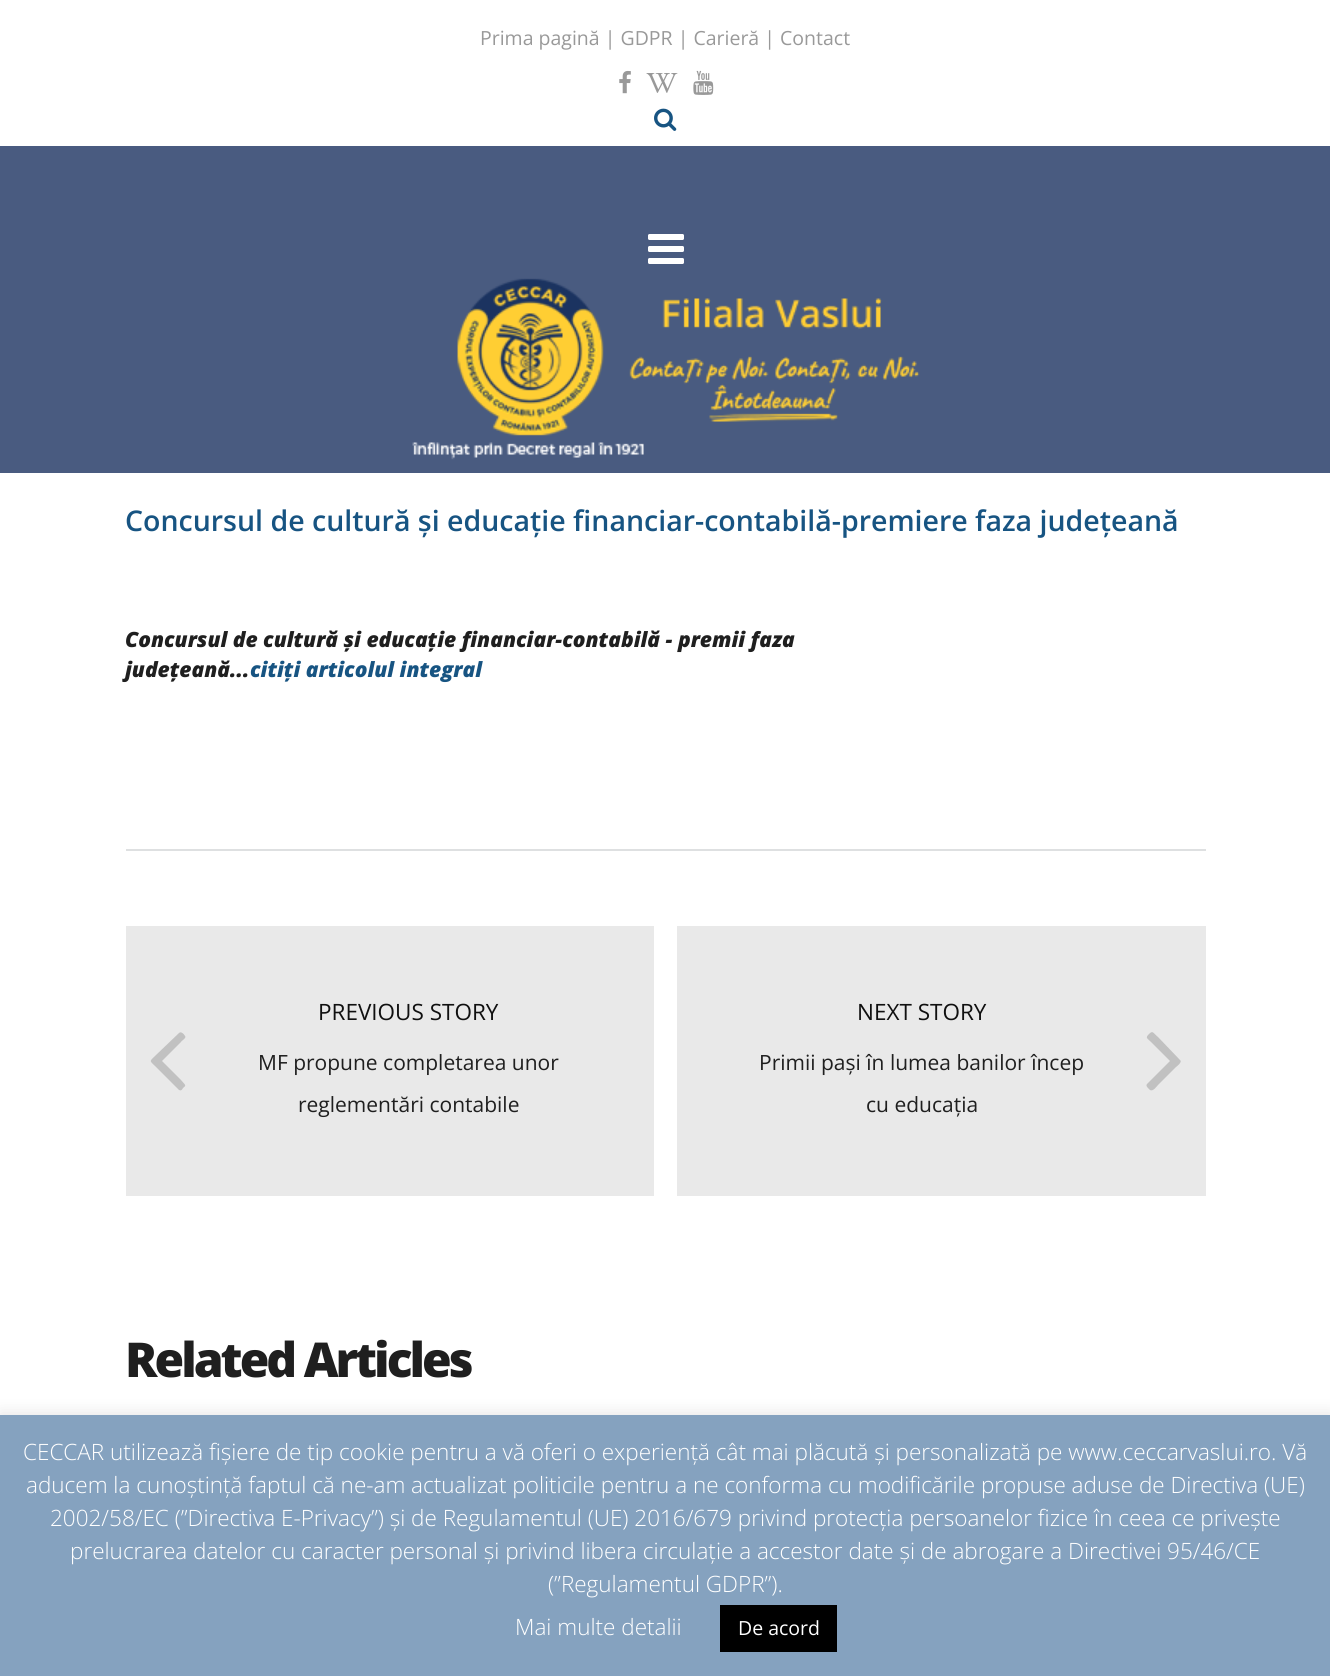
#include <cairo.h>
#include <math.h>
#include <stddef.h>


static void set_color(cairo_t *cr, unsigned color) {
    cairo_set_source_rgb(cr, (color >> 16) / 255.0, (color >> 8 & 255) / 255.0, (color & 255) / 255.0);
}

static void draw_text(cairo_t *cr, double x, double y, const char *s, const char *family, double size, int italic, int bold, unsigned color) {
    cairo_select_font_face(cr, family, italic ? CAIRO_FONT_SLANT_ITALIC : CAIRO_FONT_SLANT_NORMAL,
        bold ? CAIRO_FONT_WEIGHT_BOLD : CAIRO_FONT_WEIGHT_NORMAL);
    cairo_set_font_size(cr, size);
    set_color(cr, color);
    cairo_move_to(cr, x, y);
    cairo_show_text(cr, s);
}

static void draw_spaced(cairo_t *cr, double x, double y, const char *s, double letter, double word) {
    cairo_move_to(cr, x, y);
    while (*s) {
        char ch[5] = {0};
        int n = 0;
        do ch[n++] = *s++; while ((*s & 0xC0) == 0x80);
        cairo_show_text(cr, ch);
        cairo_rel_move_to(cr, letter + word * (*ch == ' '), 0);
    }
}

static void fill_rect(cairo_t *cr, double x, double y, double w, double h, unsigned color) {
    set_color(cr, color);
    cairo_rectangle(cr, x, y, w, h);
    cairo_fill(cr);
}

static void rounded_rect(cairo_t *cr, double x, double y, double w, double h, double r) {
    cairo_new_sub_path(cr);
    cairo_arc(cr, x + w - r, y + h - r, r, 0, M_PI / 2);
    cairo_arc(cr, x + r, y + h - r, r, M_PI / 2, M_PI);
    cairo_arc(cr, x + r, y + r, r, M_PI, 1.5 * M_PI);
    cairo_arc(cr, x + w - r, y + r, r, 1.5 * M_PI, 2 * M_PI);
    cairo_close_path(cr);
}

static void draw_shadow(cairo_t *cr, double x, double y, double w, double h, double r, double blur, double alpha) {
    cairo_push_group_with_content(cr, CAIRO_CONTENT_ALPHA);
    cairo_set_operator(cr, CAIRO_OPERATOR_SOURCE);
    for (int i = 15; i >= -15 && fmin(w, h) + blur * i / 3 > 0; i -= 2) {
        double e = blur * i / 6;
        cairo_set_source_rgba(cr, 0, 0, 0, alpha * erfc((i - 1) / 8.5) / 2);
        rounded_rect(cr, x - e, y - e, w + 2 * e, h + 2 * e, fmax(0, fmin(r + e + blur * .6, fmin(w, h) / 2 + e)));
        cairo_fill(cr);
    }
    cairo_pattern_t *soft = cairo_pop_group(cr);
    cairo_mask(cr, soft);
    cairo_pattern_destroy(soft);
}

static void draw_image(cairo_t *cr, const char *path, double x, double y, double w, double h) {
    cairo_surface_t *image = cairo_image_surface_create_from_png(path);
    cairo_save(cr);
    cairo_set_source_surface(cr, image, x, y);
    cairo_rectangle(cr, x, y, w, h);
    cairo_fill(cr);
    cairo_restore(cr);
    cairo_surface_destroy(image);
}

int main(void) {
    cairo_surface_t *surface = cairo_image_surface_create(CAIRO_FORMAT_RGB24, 1330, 1676);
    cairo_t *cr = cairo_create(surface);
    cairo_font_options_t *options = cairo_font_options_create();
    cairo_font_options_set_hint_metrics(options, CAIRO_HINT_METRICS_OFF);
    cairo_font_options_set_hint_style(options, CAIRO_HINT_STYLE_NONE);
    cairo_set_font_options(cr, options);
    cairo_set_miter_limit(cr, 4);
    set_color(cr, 0xFFFFFF);
    cairo_paint(cr);
    draw_text(cr, 480, 45, "Prima pagină | GDPR | Carieră | Contact", "Open Sans", 19.5, 0, 0, 0x999999);
    draw_image(cr, "assets/img1.png", 619, 70, 12, 24);
    draw_image(cr, "assets/img2.png", 646, 73, 32, 20);
    draw_image(cr, "assets/img3.png", 693, 70, 21, 25);
    draw_image(cr, "assets/img4.png", 654, 108, 23, 23);
    fill_rect(cr, 0, 146, 1330, 327, 0x495B80);
    draw_image(cr, "assets/img5.png", 648, 234, 36, 30);
    draw_image(cr, "assets/img6.png", 412, 278, 508, 182);
    draw_text(cr, 125, 531, "Concursul de cultură și educație financiar-contabilă-premiere faza județeană", "Open Sans SemiBold", 28.5, 0, 0, 0x175482);
    fill_rect(cr, 126, 849, 1080, 2, 0xDEE0E1);
    draw_text(cr, 125, 647, "Concursul de cultură și educație financiar-contabilă - premii faza", "Open Sans ExtraBold", 21, 1, 0, 0x1F1F1F);
    draw_text(cr, 125, 677, "județeană...", "Open Sans ExtraBold", 21, 1, 0, 0x1F1F1F);
    draw_text(cr, 250, 677, "citiți articolul integral", "Open Sans ExtraBold", 21, 1, 0, 0x175482);
    fill_rect(cr, 126, 926, 528, 270, 0xE9E9E9);
    draw_text(cr, 318, 1020, "PREVIOUS STORY", "Open Sans", 22.5, 0, 0, 0x101010);
    set_color(cr, 0xC1C1C1);
    cairo_new_path(cr);
    cairo_move_to(cr, 185, 1036);
    cairo_curve_to(cr, 187, 1038, 181, 1041, 181, 1042);
    cairo_line_to(cr, 162, 1061);
    cairo_line_to(cr, 181, 1080);
    cairo_curve_to(cr, 185, 1085, 187, 1085, 183, 1088);
    cairo_curve_to(cr, 182, 1090, 181, 1091, 179, 1090);
    cairo_line_to(cr, 156, 1067);
    cairo_curve_to(cr, 149, 1060, 149, 1062, 156, 1055);
    cairo_line_to(cr, 179, 1033);
    cairo_curve_to(cr, 181, 1031, 184, 1034, 185, 1036);
    cairo_close_path(cr);
    cairo_fill(cr);
    draw_text(cr, 258, 1070, "MF propune completarea unor", "Open Sans", 21, 0, 0, 0x1F1F1F);
    draw_text(cr, 298, 1112, "reglementări contabile", "Open Sans", 21, 0, 0, 0x1F1F1F);
    fill_rect(cr, 677, 926, 529, 270, 0xE9E9E9);
    draw_text(cr, 857, 1020, "NEXT STORY", "Open Sans", 22.5, 0, 0, 0x101010);
    draw_text(cr, 759, 1070, "Primii pași în lumea banilor încep", "Open Sans", 21, 0, 0, 0x1F1F1F);
    set_color(cr, 0xC1C1C1);
    cairo_new_path(cr);
    cairo_move_to(cr, 1180, 1060);
    cairo_curve_to(cr, 1183, 1062, 1176, 1067, 1176, 1067);
    cairo_line_to(cr, 1158, 1085);
    cairo_curve_to(cr, 1157, 1086, 1153, 1092, 1150, 1090);
    cairo_curve_to(cr, 1149, 1089, 1145, 1086, 1147, 1084);
    cairo_line_to(cr, 1170, 1061);
    cairo_line_to(cr, 1151, 1042);
    cairo_curve_to(cr, 1147, 1038, 1145, 1038, 1149, 1034);
    cairo_curve_to(cr, 1153, 1030, 1153, 1033, 1158, 1037);
    cairo_close_path(cr);
    cairo_fill(cr);
    draw_text(cr, 866, 1112, "cu educația", "Open Sans", 21, 0, 0, 0x1F1F1F);
    cairo_select_font_face(cr, "Open Sans ExtraBold", CAIRO_FONT_SLANT_NORMAL, CAIRO_FONT_WEIGHT_NORMAL);
    cairo_set_font_size(cr, 48);
    draw_spaced(cr, 125, 1377, "Related Articles", -3, 0);
    set_color(cr, 0xACABAB);
    draw_shadow(cr, 0, 1413, 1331, 263, 0, 7.5, 0.3);
    fill_rect(cr, 0, 1415, 1330, 261, 0x85A2BF);
    draw_text(cr, 23, 1460, "CECCAR utilizează fișiere de tip cookie pentru a vă oferi o experiență cât mai plăcută și personalizată pe www.ceccarvaslui.ro. Vă", "Open Sans Light", 22.5, 0, 0, 0xFFFFFF);
    draw_text(cr, 26, 1493, "aducem la cunoștință faptul că ne-am actualizat politicile pentru a ne conforma cu modificările propuse aduse de Directiva (UE)", "Open Sans Light", 22.5, 0, 0, 0xFFFFFF);
    draw_text(cr, 50, 1526, "2002/58/EC (”Directiva E-Privacy”) și de Regulamentul (UE) 2016/679 privind protecția persoanelor fizice în ceea ce privește", "Open Sans Light", 22.5, 0, 0, 0xFFFFFF);
    draw_text(cr, 70, 1559, "prelucrarea datelor cu caracter personal și privind libera circulație a accestor date și de abrogare a Directivei 95/46/CE", "Open Sans Light", 22.5, 0, 0, 0xFFFFFF);
    draw_text(cr, 548, 1592, "(”Regulamentul GDPR”).", "Open Sans Light", 22.5, 0, 0, 0xFFFFFF);
    draw_text(cr, 515, 1635, "Mai multe detalii", "Open Sans Light", 22.5, 0, 0, 0xFFFFFF);
    fill_rect(cr, 720, 1605, 117, 47, 0x000000);
    draw_text(cr, 738, 1635, "De acord", "Open Sans", 19.5, 0, 0, 0xFFFFFF);
    cairo_surface_write_to_png(surface, "output.png");
    cairo_font_options_destroy(options);
    cairo_destroy(cr);
    cairo_surface_destroy(surface);
    return 0;
}
